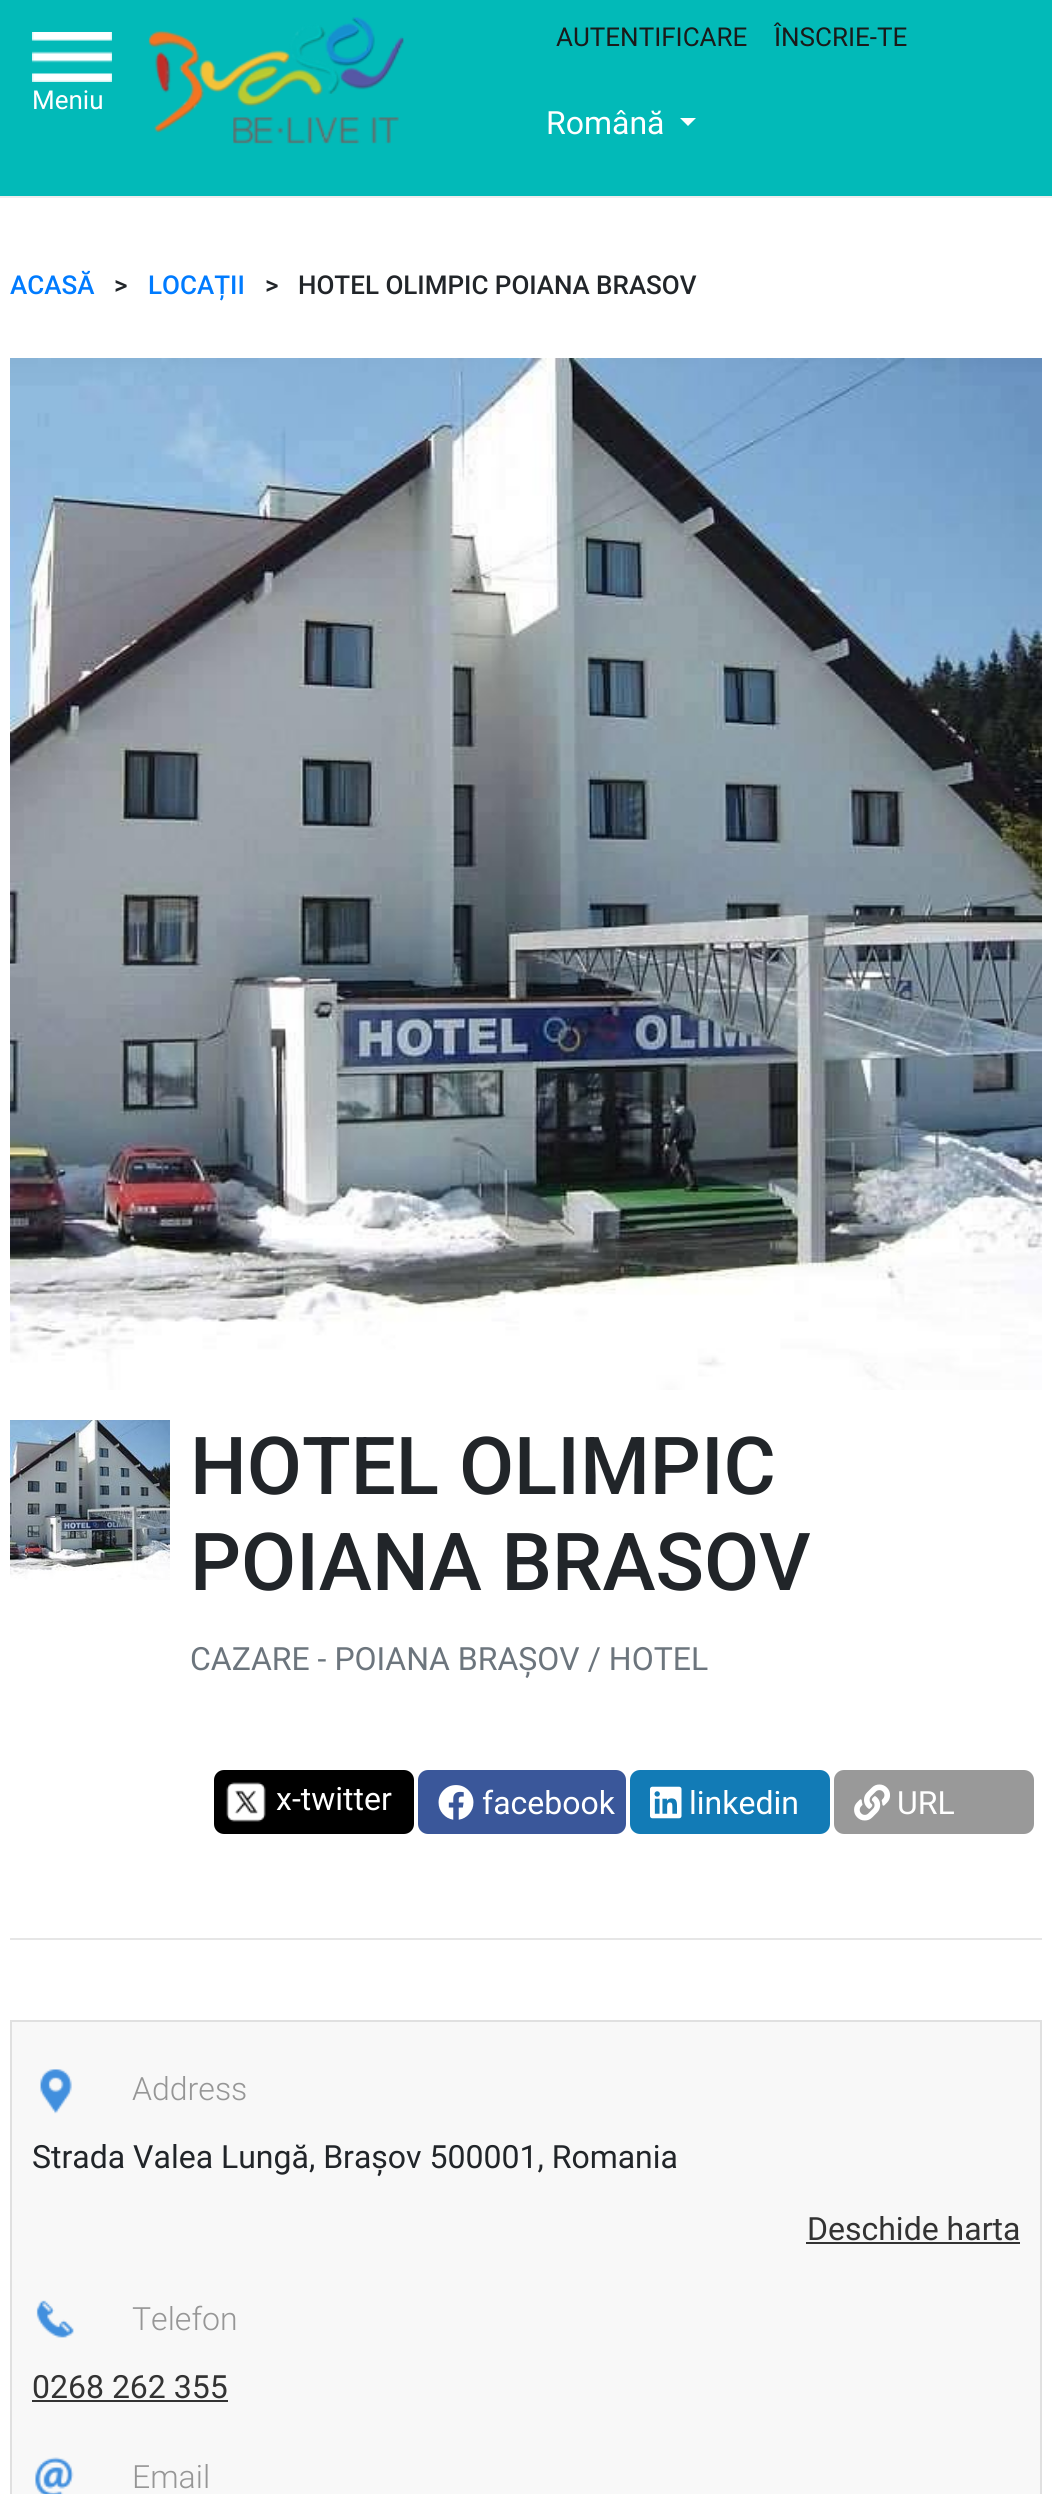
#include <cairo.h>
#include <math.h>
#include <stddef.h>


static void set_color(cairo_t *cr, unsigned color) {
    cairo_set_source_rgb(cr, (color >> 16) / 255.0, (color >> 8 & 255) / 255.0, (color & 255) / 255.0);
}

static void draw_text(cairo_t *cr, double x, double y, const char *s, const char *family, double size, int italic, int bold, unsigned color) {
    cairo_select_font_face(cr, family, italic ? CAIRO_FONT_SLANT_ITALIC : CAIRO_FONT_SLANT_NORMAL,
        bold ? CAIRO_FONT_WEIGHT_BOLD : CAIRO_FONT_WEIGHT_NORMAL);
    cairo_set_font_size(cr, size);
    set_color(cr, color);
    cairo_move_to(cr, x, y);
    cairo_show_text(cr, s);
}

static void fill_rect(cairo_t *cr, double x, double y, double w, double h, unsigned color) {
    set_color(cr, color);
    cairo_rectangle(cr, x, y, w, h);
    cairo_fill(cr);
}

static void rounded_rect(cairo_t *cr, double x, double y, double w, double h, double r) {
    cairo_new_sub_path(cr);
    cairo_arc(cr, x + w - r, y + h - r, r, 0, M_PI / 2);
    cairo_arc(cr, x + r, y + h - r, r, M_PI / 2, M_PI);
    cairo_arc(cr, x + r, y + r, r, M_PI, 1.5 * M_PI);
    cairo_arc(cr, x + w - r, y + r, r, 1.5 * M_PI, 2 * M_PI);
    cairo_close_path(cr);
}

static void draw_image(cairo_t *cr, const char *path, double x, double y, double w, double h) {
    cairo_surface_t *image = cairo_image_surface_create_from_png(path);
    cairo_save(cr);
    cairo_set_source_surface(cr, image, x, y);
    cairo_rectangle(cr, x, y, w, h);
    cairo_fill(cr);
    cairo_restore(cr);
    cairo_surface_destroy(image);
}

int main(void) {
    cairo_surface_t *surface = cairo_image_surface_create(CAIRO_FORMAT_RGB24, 1052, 2494);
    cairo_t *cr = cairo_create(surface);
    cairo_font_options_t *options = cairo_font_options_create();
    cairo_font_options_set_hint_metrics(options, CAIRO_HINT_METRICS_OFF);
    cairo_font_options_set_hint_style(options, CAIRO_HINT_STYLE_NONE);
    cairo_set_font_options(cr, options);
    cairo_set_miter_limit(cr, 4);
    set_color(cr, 0xFFFFFF);
    cairo_paint(cr);
    fill_rect(cr, 0, 0, 1052, 196, 0x02BAB8);
    draw_image(cr, "assets/img1.png", 32, 32, 80, 50);
    draw_text(cr, 32, 109, "Meniu", "Roboto", 26, 0, 0, 0xFFFFFF);
    draw_image(cr, "assets/img2.png", 148, 17, 256, 127);
    draw_text(cr, 556, 46, "AUTENTIFICARE", "Roboto", 26, 0, 0, 0x1A1A1A);
    draw_text(cr, 774, 46, "ÎNSCRIE-TE", "Roboto", 26, 0, 0, 0x1A1A1A);
    draw_text(cr, 546, 134, "Română", "Roboto", 32, 0, 0, 0xFFFFFF);
    cairo_new_path(cr);
    cairo_move_to(cr, 680, 118);
    cairo_line_to(cr, 696, 118);
    cairo_line_to(cr, 688, 126);
    cairo_close_path(cr);
    cairo_fill(cr);
    fill_rect(cr, 0, 196, 1052, 2, 0xEEEEEE);
    draw_text(cr, 10, 294, "ACASĂ", "Roboto Medium", 26, 0, 0, 0x007BFF);
    draw_text(cr, 114, 294, ">", "Roboto Medium", 26, 0, 0, 0x212529);
    draw_text(cr, 148, 294, "LOCAȚII", "Roboto Medium", 26, 0, 0, 0x007BFF);
    draw_text(cr, 265, 294, ">", "Roboto Medium", 26, 0, 0, 0x212529);
    draw_text(cr, 298, 294, "HOTEL OLIMPIC POIANA BRASOV", "Roboto Medium", 26, 0, 0, 0x212529);
    draw_image(cr, "assets/img3.png", 10, 358, 1032, 1032);
    draw_image(cr, "assets/img4.png", 10, 1420, 160, 160);
    draw_text(cr, 190, 1494, "HOTEL OLIMPIC", "Roboto Medium", 80, 0, 0, 0x212529);
    draw_text(cr, 190, 1590, "POIANA BRASOV", "Roboto Medium", 80, 0, 0, 0x212529);
    draw_text(cr, 190, 1670, "CAZARE - POIANA BRAȘOV / HOTEL", "Roboto", 32, 0, 0, 0x6C757D);
    set_color(cr, 0x000000);
    rounded_rect(cr, 214, 1770, 200, 64, 10);
    cairo_fill(cr);
    draw_image(cr, "assets/img5.png", 226, 1782, 40, 40);
    draw_text(cr, 276, 1810, "x-twitter", "Roboto", 32, 0, 0, 0xFFFFFF);
    set_color(cr, 0x3A579A);
    rounded_rect(cr, 418, 1770, 208, 64, 10);
    cairo_fill(cr);
    draw_image(cr, "assets/img6.png", 438, 1785, 36, 35);
    draw_text(cr, 482, 1814, "facebook", "Roboto", 32, 0, 0, 0xFFFFFF);
    set_color(cr, 0x127BB6);
    rounded_rect(cr, 630, 1770, 200, 64, 10);
    cairo_fill(cr);
    draw_image(cr, "assets/img7.png", 650, 1786, 32, 33);
    draw_text(cr, 689, 1814, "linkedin", "Roboto", 32, 0, 0, 0xFFFFFF);
    set_color(cr, 0x999999);
    rounded_rect(cr, 834, 1770, 200, 64, 10);
    cairo_fill(cr);
    draw_image(cr, "assets/img8.png", 854, 1784, 36, 37);
    draw_text(cr, 897, 1814, "URL", "Roboto", 32, 0, 0, 0xFFFFFF);
    fill_rect(cr, 10, 1938, 1032, 2, 0xE6E6E6);
    set_color(cr, 0xF8F8F8);
    cairo_rectangle(cr, 11, 2021, 1030, 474);
    cairo_fill_preserve(cr);
    set_color(cr, 0xE0E0E0);
    cairo_stroke(cr);
    draw_image(cr, "assets/img9.png", 40, 2069, 32, 45);
    draw_text(cr, 132, 2100, "Address", "Roboto Light", 32, 0, 0, 0x969696);
    draw_text(cr, 32, 2168, "Strada Valea Lungă, Brașov 500001, Romania", "Roboto", 32, 0, 0, 0x212529);
    draw_text(cr, 807, 2240, "Deschide harta", "Roboto", 32, 0, 0, 0x333333);
    fill_rect(cr, 806, 2242, 214, 2, 0x333333);
    draw_image(cr, "assets/img10.png", 36, 2300, 38, 38);
    draw_text(cr, 132, 2330, "Telefon", "Roboto Light", 32, 0, 0, 0x969696);
    draw_text(cr, 32, 2398, "0268 262 355", "Roboto", 32, 0, 0, 0x333333);
    fill_rect(cr, 32, 2400, 196, 2, 0x333333);
    draw_image(cr, "assets/img11.png", 35, 2457, 39, 37);
    draw_text(cr, 132, 2488, "Email", "Roboto Light", 32, 0, 0, 0x969696);
    cairo_surface_write_to_png(surface, "output.png");
    cairo_font_options_destroy(options);
    cairo_destroy(cr);
    cairo_surface_destroy(surface);
    return 0;
}
